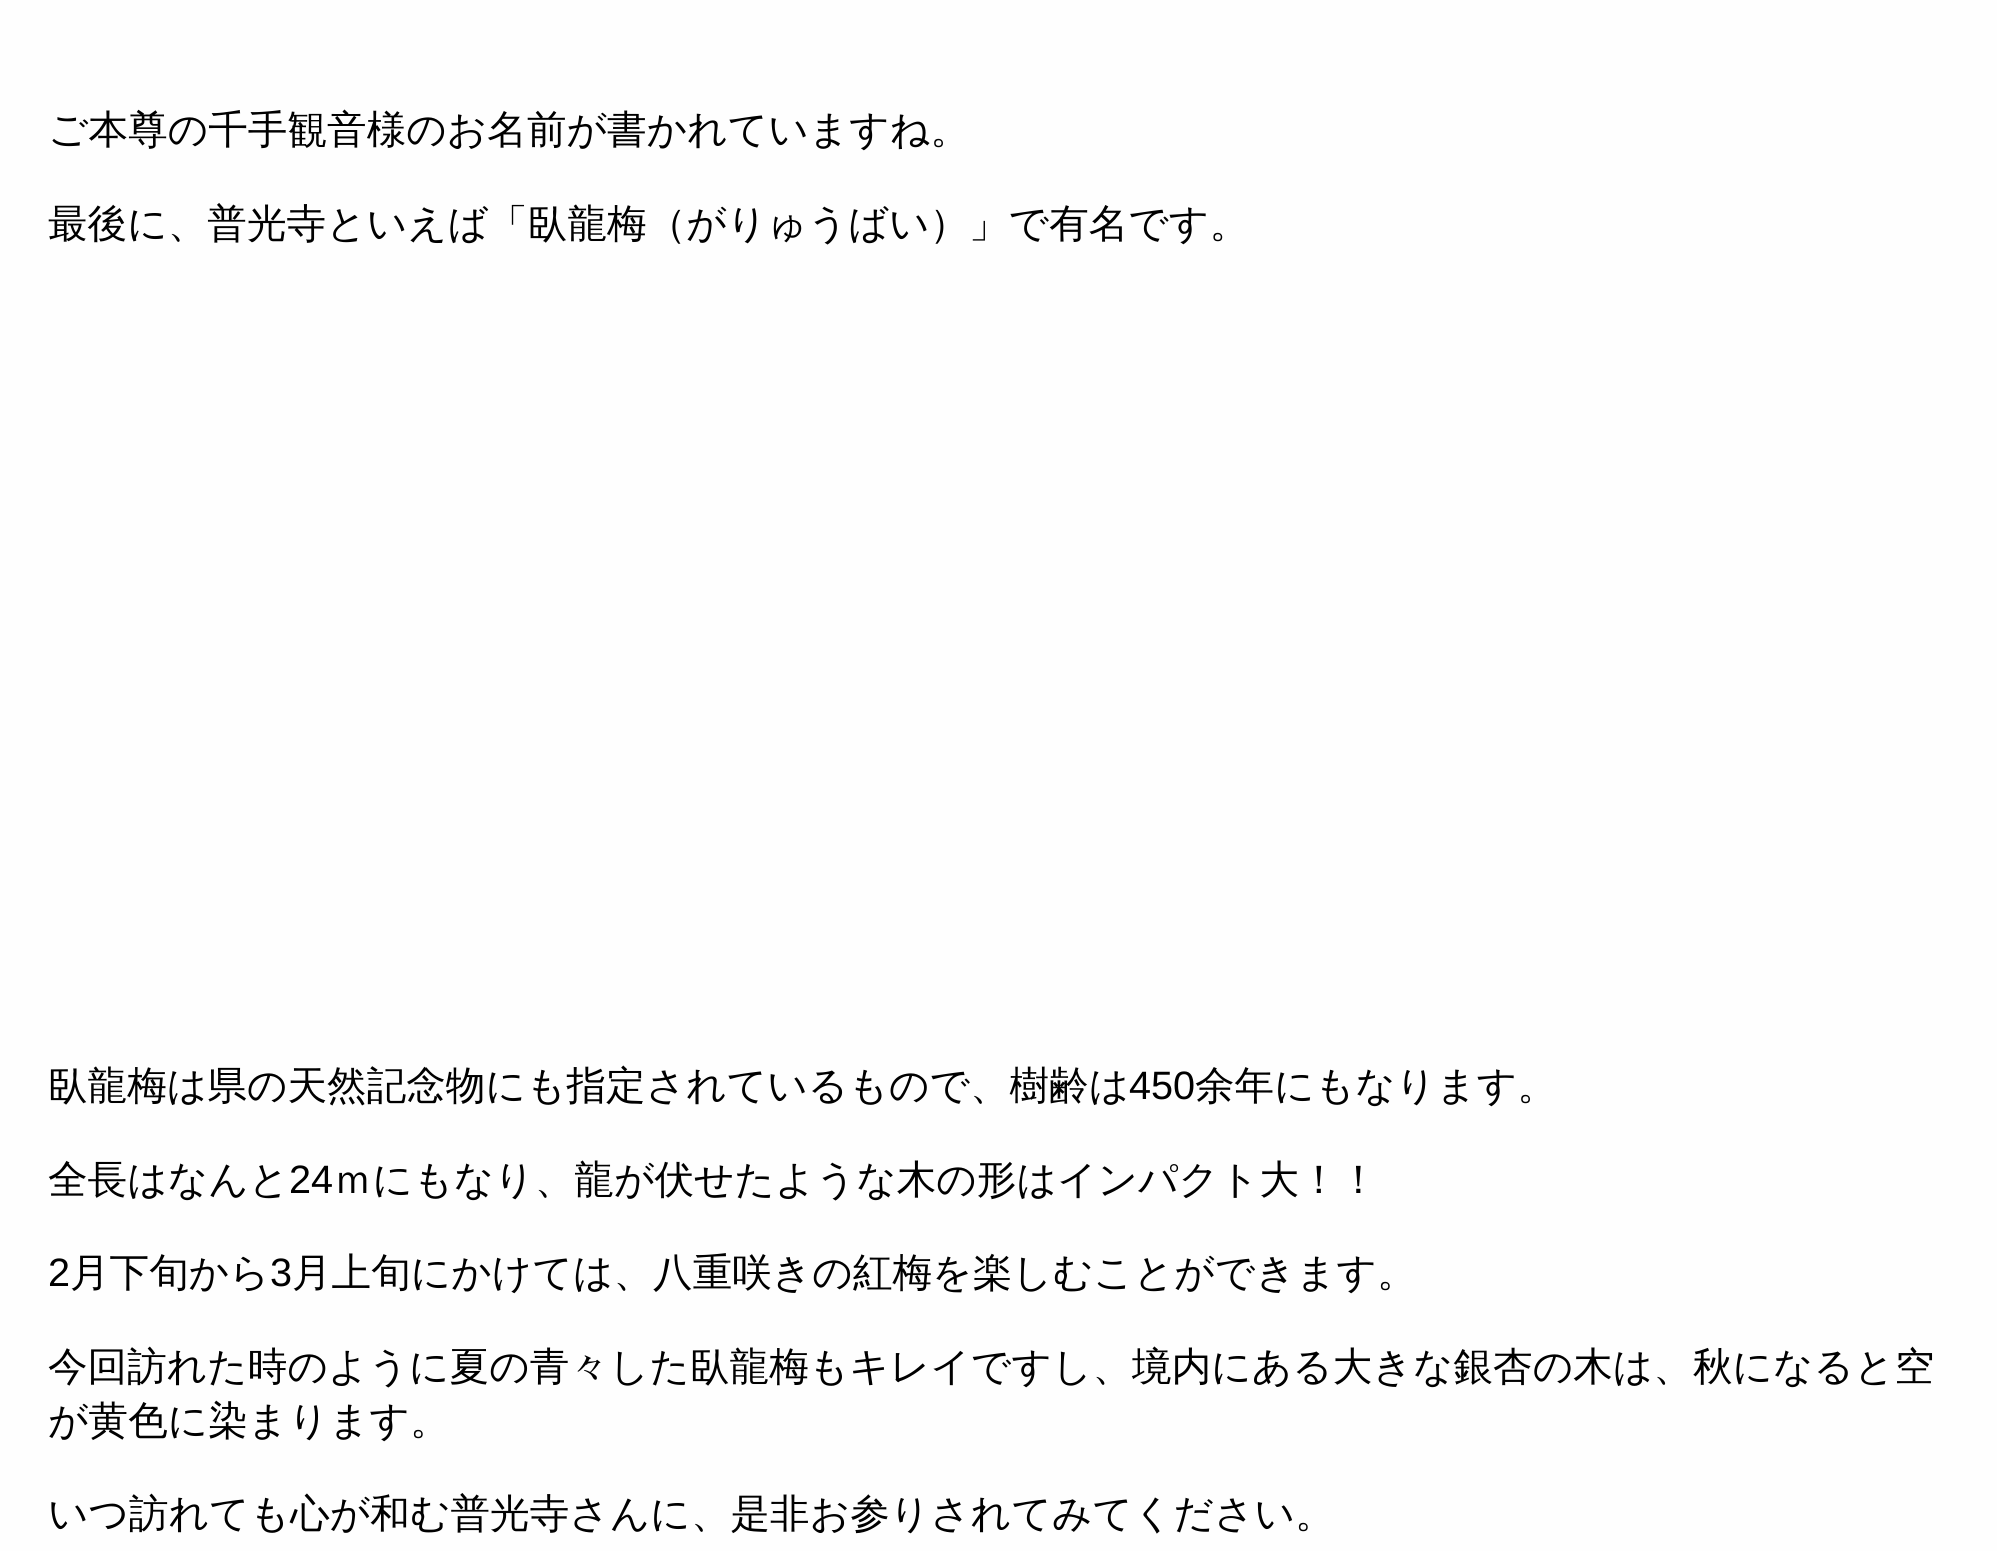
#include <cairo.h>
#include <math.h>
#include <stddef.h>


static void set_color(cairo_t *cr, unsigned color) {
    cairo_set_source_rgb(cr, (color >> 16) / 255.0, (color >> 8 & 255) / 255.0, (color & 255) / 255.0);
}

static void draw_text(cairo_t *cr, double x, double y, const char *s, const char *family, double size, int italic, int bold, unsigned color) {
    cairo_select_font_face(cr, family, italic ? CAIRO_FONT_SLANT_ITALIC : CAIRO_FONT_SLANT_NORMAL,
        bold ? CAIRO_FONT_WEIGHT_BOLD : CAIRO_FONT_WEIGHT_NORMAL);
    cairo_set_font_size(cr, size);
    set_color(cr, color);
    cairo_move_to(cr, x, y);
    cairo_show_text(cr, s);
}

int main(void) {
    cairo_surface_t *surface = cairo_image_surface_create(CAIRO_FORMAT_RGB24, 1997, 1551);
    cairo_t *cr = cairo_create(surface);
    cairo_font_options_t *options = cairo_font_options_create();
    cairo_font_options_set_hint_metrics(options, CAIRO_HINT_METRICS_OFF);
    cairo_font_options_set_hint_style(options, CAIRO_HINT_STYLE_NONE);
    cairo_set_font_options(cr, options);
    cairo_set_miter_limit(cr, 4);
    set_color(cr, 0xFEFEFE);
    cairo_paint(cr);
    draw_text(cr, 48, 143, "ご本尊の千手観音様のお名前が書かれていますね。", "WenQuanYi Zen Hei Medium", 39.6, 0, 0, 0x000000);
    draw_text(cr, 48, 237, "最後に、普光寺といえば「臥龍梅（がりゅうばい）」で有名です。", "WenQuanYi Zen Hei Medium", 39.6, 0, 0, 0x000000);
    draw_text(cr, 48, 1099, "臥龍梅は県の天然記念物にも指定されているもので、樹齢は", "WenQuanYi Zen Hei Medium", 39.6, 0, 0, 0x000000);
    draw_text(cr, 1129, 1099, "450", "Liberation Sans", 39.6, 0, 0, 0x000000);
    draw_text(cr, 1195, 1099, "余年にもなります。", "WenQuanYi Zen Hei Medium", 39.6, 0, 0, 0x000000);
    draw_text(cr, 48, 1193, "全長はなんと", "WenQuanYi Zen Hei Medium", 39.6, 0, 0, 0x000000);
    draw_text(cr, 289, 1193, "24", "Liberation Sans", 39.6, 0, 0, 0x000000);
    draw_text(cr, 333, 1193, "ｍにもなり、龍が伏せたような木の形はインパクト大！！", "WenQuanYi Zen Hei Medium", 39.6, 0, 0, 0x000000);
    draw_text(cr, 48, 1286, "2", "Liberation Sans", 39.6, 0, 0, 0x000000);
    draw_text(cr, 70, 1286, "月下旬から", "WenQuanYi Zen Hei Medium", 39.6, 0, 0, 0x000000);
    draw_text(cr, 270, 1286, "3", "Liberation Sans", 39.6, 0, 0, 0x000000);
    draw_text(cr, 292, 1286, "月上旬にかけては、八重咲きの紅梅を楽しむことができます。", "WenQuanYi Zen Hei Medium", 39.6, 0, 0, 0x000000);
    draw_text(cr, 48, 1380, "今回訪れた時のように夏の青々した臥龍梅もキレイですし、境内にある大きな銀杏の木は、秋になると空", "WenQuanYi Zen Hei Medium", 39.6, 0, 0, 0x000000);
    draw_text(cr, 48, 1434, "が黄色に染まります。", "WenQuanYi Zen Hei Medium", 39.6, 0, 0, 0x000000);
    draw_text(cr, 48, 1527, "いつ訪れても心が和む普光寺さんに、是非お参りされてみてください。", "WenQuanYi Zen Hei Medium", 39.6, 0, 0, 0x000000);
    cairo_surface_write_to_png(surface, "output.png");
    cairo_font_options_destroy(options);
    cairo_destroy(cr);
    cairo_surface_destroy(surface);
    return 0;
}
